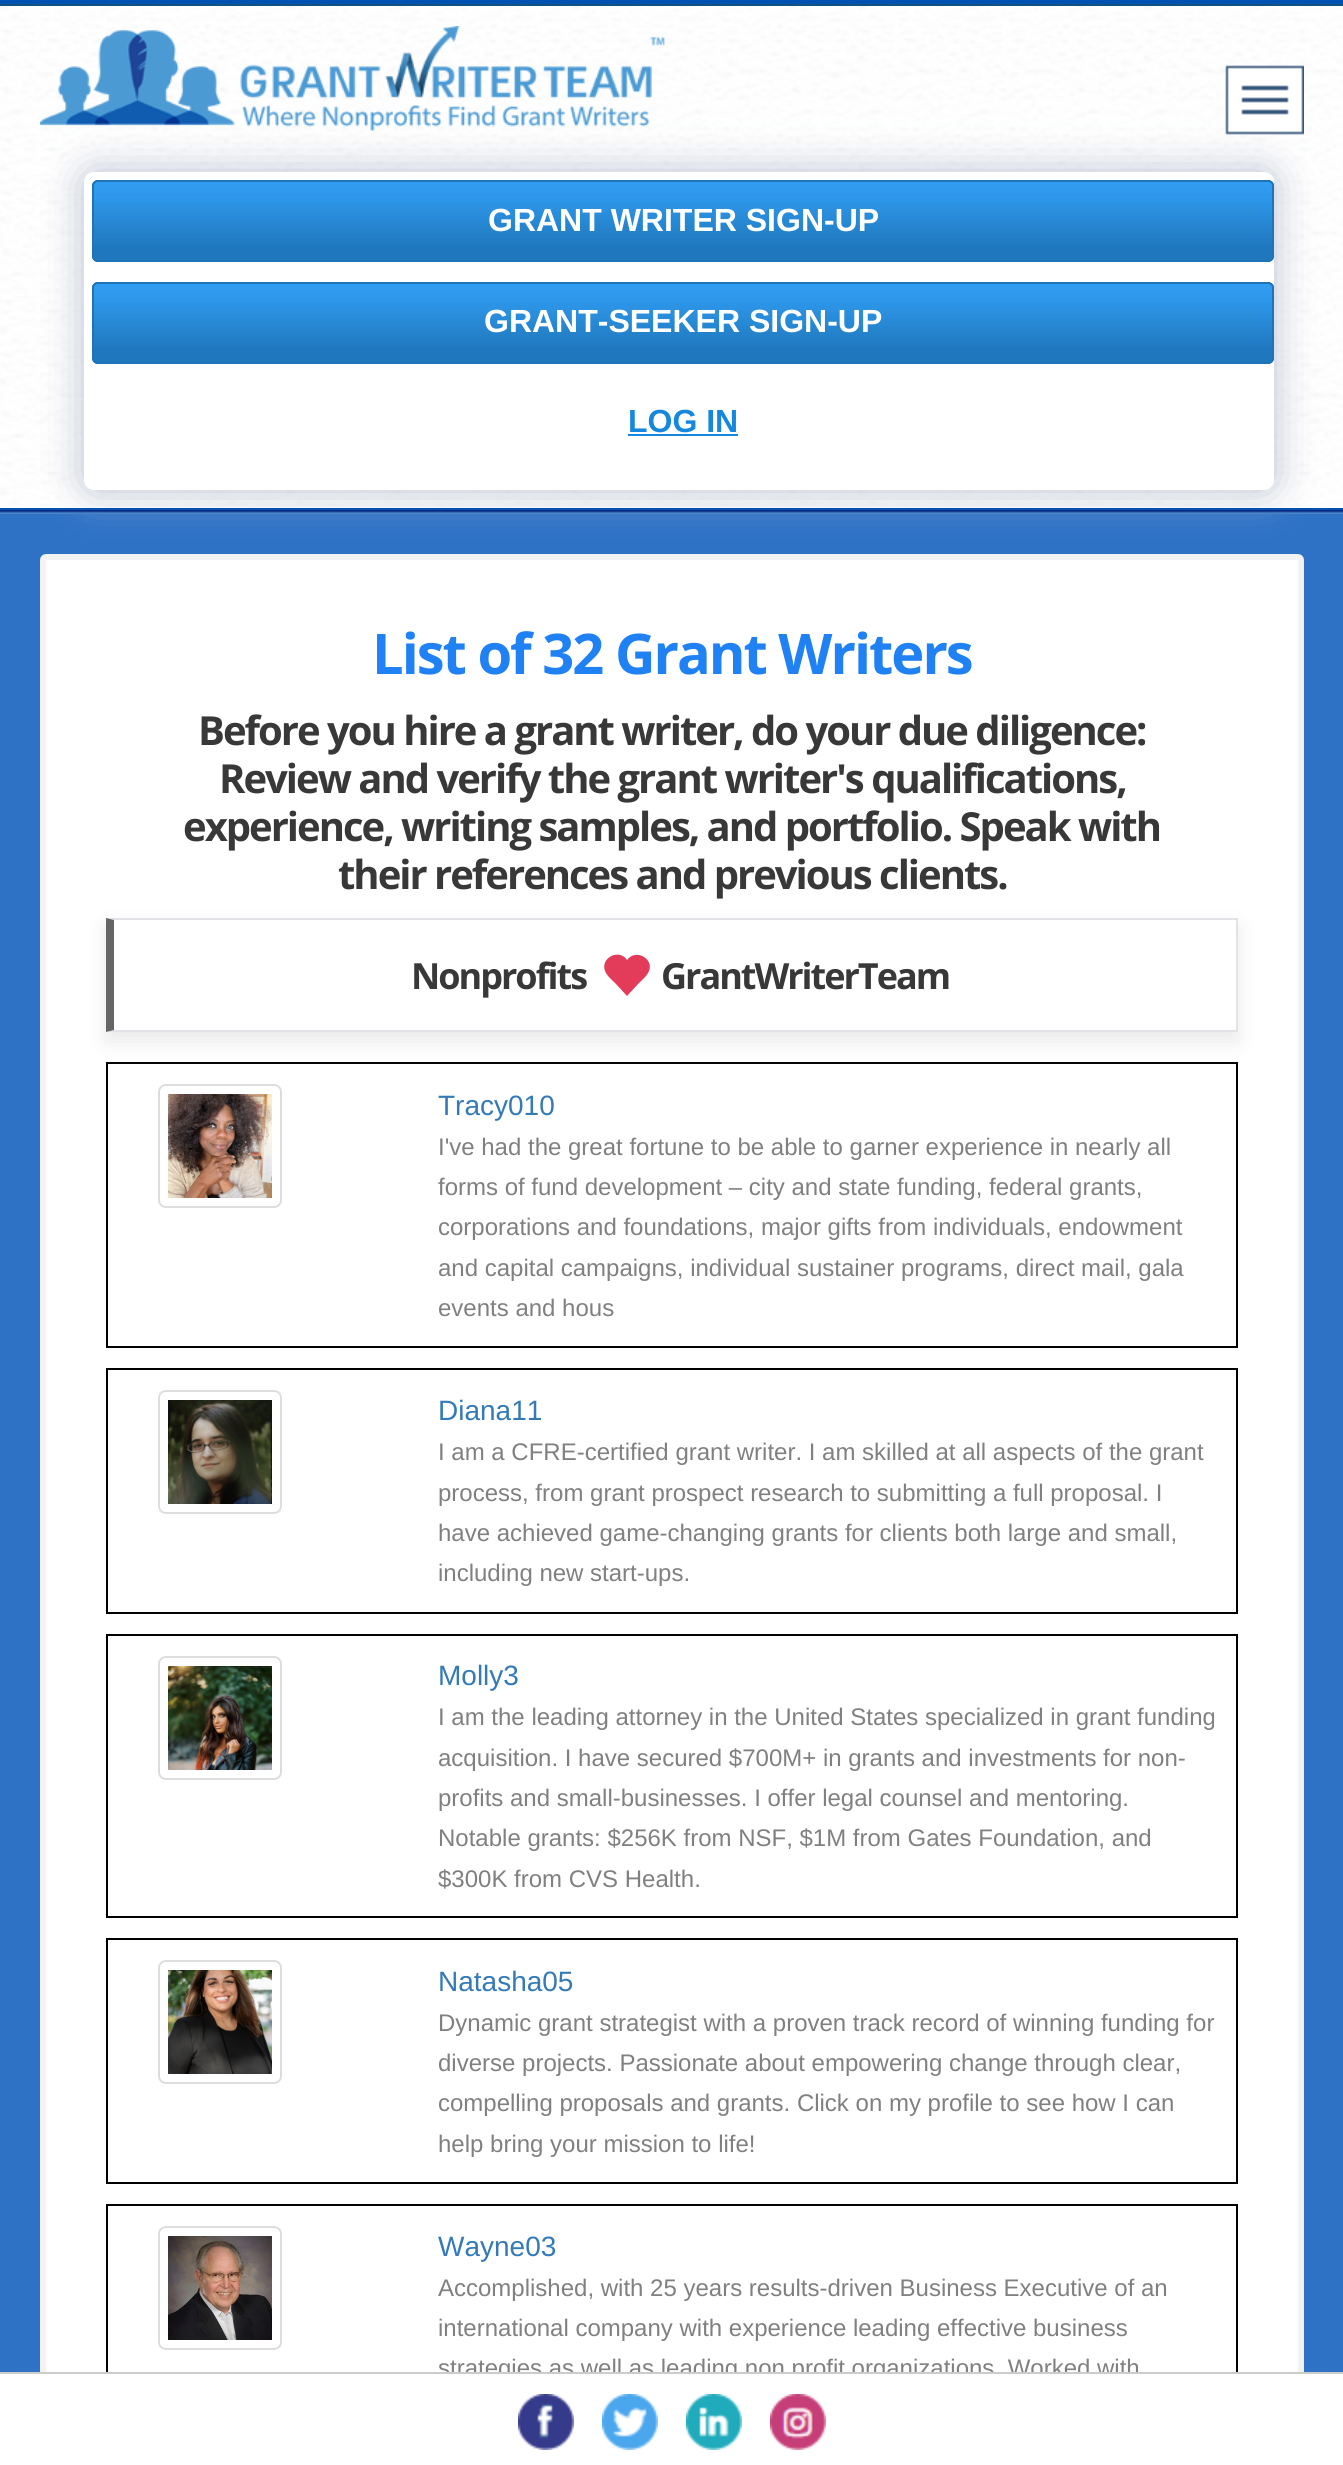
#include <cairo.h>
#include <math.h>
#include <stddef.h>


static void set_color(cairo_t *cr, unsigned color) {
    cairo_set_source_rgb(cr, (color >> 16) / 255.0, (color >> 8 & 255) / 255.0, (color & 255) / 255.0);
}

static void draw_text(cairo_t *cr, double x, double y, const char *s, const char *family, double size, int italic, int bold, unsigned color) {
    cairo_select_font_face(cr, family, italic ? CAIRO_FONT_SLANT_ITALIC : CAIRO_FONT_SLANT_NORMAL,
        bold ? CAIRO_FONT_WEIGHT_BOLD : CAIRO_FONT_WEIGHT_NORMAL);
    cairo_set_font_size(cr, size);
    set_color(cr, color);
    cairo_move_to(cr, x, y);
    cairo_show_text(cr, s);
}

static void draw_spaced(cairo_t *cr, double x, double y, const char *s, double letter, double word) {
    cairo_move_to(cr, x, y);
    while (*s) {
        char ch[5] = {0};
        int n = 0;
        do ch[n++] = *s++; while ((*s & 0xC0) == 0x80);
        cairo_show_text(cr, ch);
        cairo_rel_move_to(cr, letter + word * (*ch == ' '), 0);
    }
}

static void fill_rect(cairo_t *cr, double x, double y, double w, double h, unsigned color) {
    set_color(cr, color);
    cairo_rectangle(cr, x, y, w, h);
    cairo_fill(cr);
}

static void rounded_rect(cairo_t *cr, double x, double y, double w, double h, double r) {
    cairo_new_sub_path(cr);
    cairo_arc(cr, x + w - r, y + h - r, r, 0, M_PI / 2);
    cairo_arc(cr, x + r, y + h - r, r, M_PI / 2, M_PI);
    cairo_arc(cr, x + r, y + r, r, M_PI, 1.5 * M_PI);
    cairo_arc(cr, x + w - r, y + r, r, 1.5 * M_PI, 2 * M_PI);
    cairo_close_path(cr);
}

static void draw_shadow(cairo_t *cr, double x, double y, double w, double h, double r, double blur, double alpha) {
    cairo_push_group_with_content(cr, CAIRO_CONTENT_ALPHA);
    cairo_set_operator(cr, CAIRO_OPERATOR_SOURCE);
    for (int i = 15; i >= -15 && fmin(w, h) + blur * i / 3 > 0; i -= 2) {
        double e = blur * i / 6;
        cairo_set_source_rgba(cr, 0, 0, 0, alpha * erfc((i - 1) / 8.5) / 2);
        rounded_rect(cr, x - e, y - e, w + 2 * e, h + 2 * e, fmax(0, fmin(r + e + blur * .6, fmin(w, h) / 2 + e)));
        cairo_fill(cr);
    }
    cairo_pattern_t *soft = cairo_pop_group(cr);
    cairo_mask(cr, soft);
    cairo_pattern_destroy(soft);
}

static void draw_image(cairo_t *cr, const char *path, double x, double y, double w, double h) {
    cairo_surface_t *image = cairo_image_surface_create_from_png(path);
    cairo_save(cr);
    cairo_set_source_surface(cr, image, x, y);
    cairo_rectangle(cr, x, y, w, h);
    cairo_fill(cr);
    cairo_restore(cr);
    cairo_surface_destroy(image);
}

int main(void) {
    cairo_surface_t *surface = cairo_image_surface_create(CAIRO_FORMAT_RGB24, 1343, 2465);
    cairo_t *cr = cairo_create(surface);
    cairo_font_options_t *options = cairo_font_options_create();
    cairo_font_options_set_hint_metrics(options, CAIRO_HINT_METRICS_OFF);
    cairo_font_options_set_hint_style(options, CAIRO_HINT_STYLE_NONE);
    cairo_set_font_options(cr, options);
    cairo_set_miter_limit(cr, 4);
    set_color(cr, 0x2E72C6);
    cairo_paint(cr);
    fill_rect(cr, 0, 0, 1343, 4, 0x0052B0);
    fill_rect(cr, 0, 4, 1343, 2, 0x0F5386);
    set_color(cr, 0xFFFFFF);
    rounded_rect(cr, 43, 557, 1258, 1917, 3);
    cairo_fill_preserve(cr);
    set_color(cr, 0xF2F2F2);
    cairo_set_line_width(cr, 6);
    cairo_stroke(cr);
    cairo_rectangle(cr, 107, 2205, 1130, 244);
    set_color(cr, 0x000000);
    cairo_set_line_width(cr, 2);
    cairo_stroke(cr);
    draw_text(cr, 438, 2376, "strategies as well as leading non profit organizations. Worked with", "Liberation Sans", 24, 0, 0, 0x808080);
    fill_rect(cr, 0, 2374, 1343, 91, 0xFFFFFF);
    fill_rect(cr, 0, 2372, 1343, 2, 0xCCCCCC);
    draw_image(cr, "assets/img1.png", 518, 2394, 56, 56);
    draw_image(cr, "assets/img2.png", 602, 2394, 56, 56);
    draw_image(cr, "assets/img3.png", 686, 2394, 56, 56);
    draw_image(cr, "assets/img4.png", 770, 2394, 56, 56);
    draw_image(cr, "assets/img5.png", 0, 6, 1343, 500);
    fill_rect(cr, 0, 506, 1343, 2, 0xFFFFFF);
    draw_image(cr, "assets/img6.png", 40, 26, 625, 105);
    set_color(cr, 0xB9C0D0);
    draw_shadow(cr, 84, 172, 1190, 318, 10, 20, 1);
    draw_image(cr, "assets/img7.png", 1225, 65, 79, 70);
    set_color(cr, 0xFFFFFF);
    rounded_rect(cr, 84, 172, 1190, 318, 10);
    cairo_fill(cr);
    set_color(cr, 0x1F78BD);
    rounded_rect(cr, 92, 180, 1182, 82, 6);
    cairo_fill(cr);
    draw_image(cr, "assets/img8.png", 92, 182, 1182, 63);
    rounded_rect(cr, 93, 181, 1180, 80, 5);
    set_color(cr, 0x1E74B7);
    cairo_stroke(cr);
    draw_text(cr, 488, 231, "GRANT WRITER SIGN-UP", "Liberation Sans", 32, 0, 1, 0xFFFFFF);
    set_color(cr, 0x1F78BD);
    rounded_rect(cr, 92, 282, 1182, 82, 6);
    cairo_fill(cr);
    draw_image(cr, "assets/img8.png", 92, 284, 1182, 63);
    rounded_rect(cr, 93, 283, 1180, 80, 5);
    set_color(cr, 0x1E74B7);
    cairo_stroke(cr);
    draw_text(cr, 484, 332, "GRANT-SEEKER SIGN-UP", "Liberation Sans", 32, 0, 1, 0xFFFFFF);
    draw_text(cr, 628, 432, "LOG IN", "Liberation Sans", 32, 0, 1, 0x1687DF);
    fill_rect(cr, 628, 434, 110, 2, 0x1687DF);
    fill_rect(cr, 0, 508, 1343, 2, 0x0052B0);
    draw_image(cr, "assets/img9.png", 0, 510, 1343, 4);
    cairo_select_font_face(cr, "Open Sans", CAIRO_FONT_SLANT_NORMAL, CAIRO_FONT_WEIGHT_BOLD);
    cairo_set_font_size(cr, 56);
    set_color(cr, 0x1F81F4);
    draw_spaced(cr, 372, 674, "List of 32 Grant Writers", -2, 0);
    cairo_set_font_size(cr, 40);
    set_color(cr, 0x383838);
    draw_spaced(cr, 198, 745, "Before you hire a grant writer, do your due diligence:", -2, 0);
    draw_spaced(cr, 219, 793, "Review and verify the grant writer's qualifications,", -2, 0);
    draw_spaced(cr, 183, 841, "experience, writing samples, and portfolio. Speak with", -2, 0);
    draw_spaced(cr, 338, 889, "their references and previous clients.", -2, 0);
    cairo_rectangle(cr, 107, 1063, 1130, 284);
    set_color(cr, 0x000000);
    cairo_stroke(cr);
    cairo_save(cr);
    cairo_set_fill_rule(cr, CAIRO_FILL_RULE_EVEN_ODD);
    cairo_new_path(cr);
    cairo_move_to(cr, 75, 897);
    cairo_line_to(cr, 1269, 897);
    cairo_line_to(cr, 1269, 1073);
    cairo_line_to(cr, 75, 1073);
    cairo_close_path(cr);
    cairo_move_to(cr, 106, 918);
    cairo_line_to(cr, 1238, 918);
    cairo_line_to(cr, 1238, 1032);
    cairo_line_to(cr, 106, 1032);
    cairo_close_path(cr);
    cairo_clip(cr);
    set_color(cr, 0xEAEAEA);
    draw_shadow(cr, 106, 928, 1132, 114, 0, 10, 1);
    cairo_restore(cr);
    set_color(cr, 0xE1E3E7);
    cairo_new_path(cr);
    cairo_move_to(cr, 106, 918);
    cairo_line_to(cr, 1238, 918);
    cairo_line_to(cr, 1236, 920);
    cairo_line_to(cr, 114, 920);
    cairo_close_path(cr);
    cairo_fill(cr);
    fill_rect(cr, 1236, 918, 2, 114, 0xE1E3E7);
    cairo_new_path(cr);
    cairo_move_to(cr, 1238, 1032);
    cairo_line_to(cr, 106, 1032);
    cairo_line_to(cr, 114, 1030);
    cairo_line_to(cr, 1236, 1030);
    cairo_close_path(cr);
    cairo_fill(cr);
    set_color(cr, 0x666666);
    cairo_new_path(cr);
    cairo_move_to(cr, 106, 1032);
    cairo_line_to(cr, 106, 918);
    cairo_line_to(cr, 114, 920);
    cairo_line_to(cr, 114, 1030);
    cairo_close_path(cr);
    cairo_fill(cr);
    cairo_set_font_size(cr, 36);
    set_color(cr, 0x383838);
    draw_spaced(cr, 411, 989, "Nonprofits", -2, 0);
    set_color(cr, 0xE33C5B);
    cairo_new_path(cr);
    cairo_move_to(cr, 627, 960);
    cairo_curve_to(cr, 636, 948, 654, 959, 649, 971);
    cairo_curve_to(cr, 647, 976, 642, 980, 638, 984);
    cairo_line_to(cr, 627, 996);
    cairo_line_to(cr, 616, 984);
    cairo_curve_to(cr, 612, 980, 607, 976, 605, 971);
    cairo_curve_to(cr, 600, 958, 619, 948, 627, 960);
    cairo_close_path(cr);
    cairo_fill(cr);
    set_color(cr, 0x383838);
    draw_spaced(cr, 661, 989, "GrantWriterTeam", -2, 0);
    rounded_rect(cr, 159, 1085, 122, 122, 7);
    set_color(cr, 0xDDDDDD);
    cairo_stroke(cr);
    draw_image(cr, "assets/img10.png", 168, 1094, 104, 104);
    draw_text(cr, 438, 1115, "Tracy010", "Liberation Sans", 28, 0, 0, 0x337AB7);
    draw_text(cr, 438, 1155, "I've had the great fortune to be able to garner experience in nearly all", "Liberation Sans", 24, 0, 0, 0x808080);
    draw_text(cr, 438, 1195, "forms of fund development – city and state funding, federal grants,", "Liberation Sans", 24, 0, 0, 0x808080);
    draw_text(cr, 438, 1235, "corporations and foundations, major gifts from individuals, endowment", "Liberation Sans", 24, 0, 0, 0x808080);
    draw_text(cr, 438, 1276, "and capital campaigns, individual sustainer programs, direct mail, gala", "Liberation Sans", 24, 0, 0, 0x808080);
    draw_text(cr, 438, 1316, "events and hous", "Liberation Sans", 24, 0, 0, 0x808080);
    cairo_rectangle(cr, 107, 1369, 1130, 244);
    set_color(cr, 0x000000);
    cairo_stroke(cr);
    rounded_rect(cr, 159, 1391, 122, 122, 7);
    set_color(cr, 0xDDDDDD);
    cairo_stroke(cr);
    draw_image(cr, "assets/img11.png", 168, 1400, 104, 104);
    draw_text(cr, 438, 1420, "Diana11", "Liberation Sans", 28, 0, 0, 0x337AB7);
    draw_text(cr, 438, 1460, "I am a CFRE-certified grant writer. I am skilled at all aspects of the grant", "Liberation Sans", 24, 0, 0, 0x808080);
    draw_text(cr, 438, 1501, "process, from grant prospect research to submitting a full proposal. I", "Liberation Sans", 24, 0, 0, 0x808080);
    draw_text(cr, 438, 1541, "have achieved game-changing grants for clients both large and small,", "Liberation Sans", 24, 0, 0, 0x808080);
    draw_text(cr, 438, 1581, "including new start-ups.", "Liberation Sans", 24, 0, 0, 0x808080);
    cairo_rectangle(cr, 107, 1635, 1130, 282);
    set_color(cr, 0x000000);
    cairo_stroke(cr);
    rounded_rect(cr, 159, 1657, 122, 122, 7);
    set_color(cr, 0xDDDDDD);
    cairo_stroke(cr);
    draw_image(cr, "assets/img12.png", 168, 1666, 104, 104);
    draw_text(cr, 438, 1685, "Molly3", "Liberation Sans", 28, 0, 0, 0x337AB7);
    draw_text(cr, 438, 1725, "I am the leading attorney in the United States specialized in grant funding", "Liberation Sans", 24, 0, 0, 0x808080);
    draw_text(cr, 438, 1766, "acquisition. I have secured $700M+ in grants and investments for non-", "Liberation Sans", 24, 0, 0, 0x808080);
    draw_text(cr, 438, 1806, "profits and small-businesses. I offer legal counsel and mentoring.", "Liberation Sans", 24, 0, 0, 0x808080);
    draw_text(cr, 438, 1846, "Notable grants: $256K from NSF, $1M from Gates Foundation, and", "Liberation Sans", 24, 0, 0, 0x808080);
    draw_text(cr, 438, 1887, "$300K from CVS Health.", "Liberation Sans", 24, 0, 0, 0x808080);
    cairo_rectangle(cr, 107, 1939, 1130, 244);
    set_color(cr, 0x000000);
    cairo_stroke(cr);
    rounded_rect(cr, 159, 1961, 122, 122, 7);
    set_color(cr, 0xDDDDDD);
    cairo_stroke(cr);
    draw_image(cr, "assets/img13.png", 168, 1970, 104, 104);
    draw_text(cr, 438, 1991, "Natasha05", "Liberation Sans", 28, 0, 0, 0x337AB7);
    draw_text(cr, 438, 2031, "Dynamic grant strategist with a proven track record of winning funding for", "Liberation Sans", 24, 0, 0, 0x808080);
    draw_text(cr, 438, 2071, "diverse projects. Passionate about empowering change through clear,", "Liberation Sans", 24, 0, 0, 0x808080);
    draw_text(cr, 438, 2111, "compelling proposals and grants. Click on my profile to see how I can", "Liberation Sans", 24, 0, 0, 0x808080);
    draw_text(cr, 438, 2152, "help bring your mission to life!", "Liberation Sans", 24, 0, 0, 0x808080);
    rounded_rect(cr, 159, 2227, 122, 122, 7);
    set_color(cr, 0xDDDDDD);
    cairo_stroke(cr);
    draw_image(cr, "assets/img14.png", 168, 2236, 104, 104);
    draw_text(cr, 438, 2256, "Wayne03", "Liberation Sans", 28, 0, 0, 0x337AB7);
    draw_text(cr, 438, 2296, "Accomplished, with 25 years results-driven Business Executive of an", "Liberation Sans", 24, 0, 0, 0x808080);
    draw_text(cr, 438, 2336, "international company with experience leading effective business", "Liberation Sans", 24, 0, 0, 0x808080);
    cairo_surface_write_to_png(surface, "output.png");
    cairo_font_options_destroy(options);
    cairo_destroy(cr);
    cairo_surface_destroy(surface);
    return 0;
}
